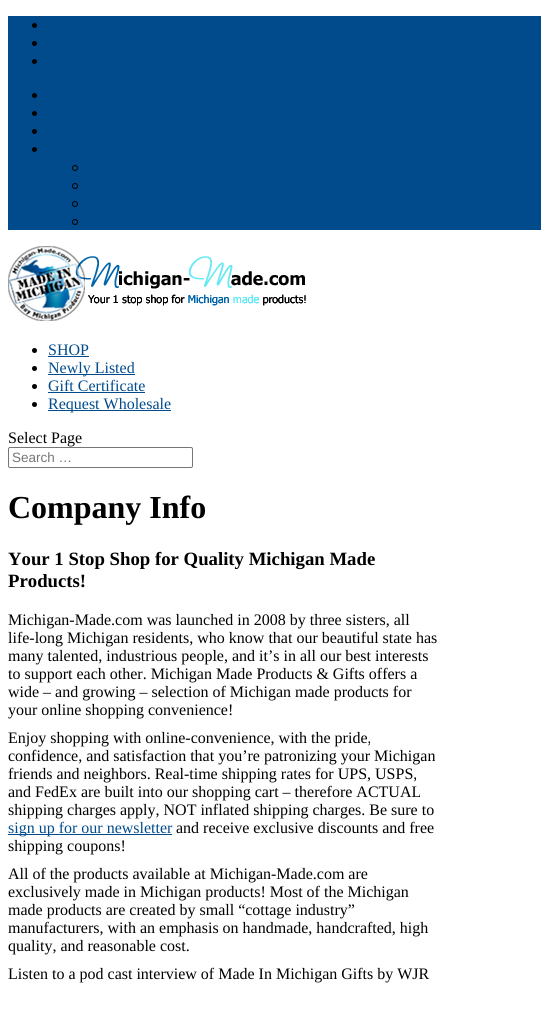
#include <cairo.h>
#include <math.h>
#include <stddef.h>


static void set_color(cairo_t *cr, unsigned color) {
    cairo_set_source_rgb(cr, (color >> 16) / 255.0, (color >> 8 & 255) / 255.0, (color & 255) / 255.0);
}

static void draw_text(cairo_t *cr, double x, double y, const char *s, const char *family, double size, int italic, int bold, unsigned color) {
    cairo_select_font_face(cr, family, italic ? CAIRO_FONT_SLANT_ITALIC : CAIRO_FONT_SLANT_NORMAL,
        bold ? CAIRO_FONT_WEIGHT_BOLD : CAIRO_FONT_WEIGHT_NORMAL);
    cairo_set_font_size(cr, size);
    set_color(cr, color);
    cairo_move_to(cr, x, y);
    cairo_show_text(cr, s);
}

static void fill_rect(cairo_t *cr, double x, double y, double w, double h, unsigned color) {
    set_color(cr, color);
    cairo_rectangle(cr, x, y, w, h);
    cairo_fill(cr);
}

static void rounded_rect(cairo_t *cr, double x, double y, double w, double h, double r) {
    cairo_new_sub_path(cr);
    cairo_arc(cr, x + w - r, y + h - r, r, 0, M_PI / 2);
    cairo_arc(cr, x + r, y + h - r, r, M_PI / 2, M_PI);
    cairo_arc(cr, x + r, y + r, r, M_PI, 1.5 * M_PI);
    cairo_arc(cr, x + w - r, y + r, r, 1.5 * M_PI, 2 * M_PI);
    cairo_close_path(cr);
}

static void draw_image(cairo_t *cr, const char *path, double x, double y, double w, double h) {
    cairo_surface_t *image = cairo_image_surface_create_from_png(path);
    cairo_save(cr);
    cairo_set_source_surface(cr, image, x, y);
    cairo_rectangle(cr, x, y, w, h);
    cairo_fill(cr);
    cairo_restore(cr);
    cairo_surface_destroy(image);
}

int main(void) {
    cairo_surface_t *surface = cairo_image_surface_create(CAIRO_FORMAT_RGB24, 549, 1011);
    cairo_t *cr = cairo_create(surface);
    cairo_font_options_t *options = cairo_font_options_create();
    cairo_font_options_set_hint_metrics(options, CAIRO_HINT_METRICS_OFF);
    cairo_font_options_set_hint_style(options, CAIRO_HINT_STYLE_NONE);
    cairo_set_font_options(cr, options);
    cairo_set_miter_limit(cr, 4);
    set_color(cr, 0xFFFFFF);
    cairo_paint(cr);
    fill_rect(cr, 8, 16, 533, 214, 0x014B8C);
    set_color(cr, 0x000000);
    cairo_arc(cr, 34.5, 25.5, 2.5, 0, 2 * M_PI);
    cairo_fill(cr);
    cairo_arc(cr, 34.5, 43.5, 2.5, 0, 2 * M_PI);
    cairo_fill(cr);
    cairo_arc(cr, 34.5, 61.5, 2.5, 0, 2 * M_PI);
    cairo_fill(cr);
    cairo_arc(cr, 34.5, 95.5, 2.5, 0, 2 * M_PI);
    cairo_fill(cr);
    cairo_arc(cr, 34.5, 113.5, 2.5, 0, 2 * M_PI);
    cairo_fill(cr);
    cairo_arc(cr, 34.5, 131.5, 2.5, 0, 2 * M_PI);
    cairo_fill(cr);
    cairo_arc(cr, 34.5, 149.5, 2.5, 0, 2 * M_PI);
    cairo_fill(cr);
    cairo_arc(cr, 75, 168, 2.5, 0, 2 * M_PI);
    cairo_set_line_width(cr, 1);
    cairo_stroke(cr);
    cairo_arc(cr, 75, 186, 2.5, 0, 2 * M_PI);
    cairo_stroke(cr);
    cairo_arc(cr, 75, 204, 2.5, 0, 2 * M_PI);
    cairo_stroke(cr);
    cairo_arc(cr, 75, 222, 2.5, 0, 2 * M_PI);
    cairo_stroke(cr);
    draw_image(cr, "assets/img1.png", 8, 246, 298, 75);
    cairo_arc(cr, 34.5, 350.5, 2.5, 0, 2 * M_PI);
    cairo_fill(cr);
    draw_text(cr, 48, 355, "SHOP", "Liberation Serif", 16, 0, 0, 0x014B8C);
    fill_rect(cr, 48, 356, 41, 1, 0x014B8C);
    set_color(cr, 0x000000);
    cairo_new_path(cr);
    cairo_arc(cr, 34.5, 368.5, 2.5, 0, 2 * M_PI);
    cairo_fill(cr);
    fill_rect(cr, 48, 374, 87, 1, 0x014B8C);
    draw_text(cr, 48, 373, "Newly Listed", "Liberation Serif", 16, 0, 0, 0x014B8C);
    set_color(cr, 0x000000);
    cairo_new_path(cr);
    cairo_arc(cr, 34.5, 386.5, 2.5, 0, 2 * M_PI);
    cairo_fill(cr);
    draw_text(cr, 48, 391, "Gift Certificate", "Liberation Serif", 16, 0, 0, 0x014B8C);
    fill_rect(cr, 48, 392, 97, 1, 0x014B8C);
    set_color(cr, 0x000000);
    cairo_new_path(cr);
    cairo_arc(cr, 34.5, 404.5, 2.5, 0, 2 * M_PI);
    cairo_fill(cr);
    fill_rect(cr, 48, 410, 123, 1, 0x014B8C);
    draw_text(cr, 48, 409, "Request Wholesale", "Liberation Serif", 16, 0, 0, 0x014B8C);
    draw_text(cr, 8, 443, "Select Page", "Liberation Serif", 16, 0, 0, 0x000000);
    rounded_rect(cr, 8.5, 447.5, 184, 20, 1.5);
    set_color(cr, 0x767676);
    cairo_stroke(cr);
    draw_text(cr, 12, 462, "Search …", "Liberation Sans", 13.5, 0, 0, 0x757575);
    draw_text(cr, 8, 518, "Company Info", "Liberation Serif", 32, 0, 1, 0x000000);
    draw_text(cr, 8, 565, "Your 1 Stop Shop for Quality Michigan Made", "Liberation Serif", 18.75, 0, 1, 0x000000);
    draw_text(cr, 8, 587, "Products!", "Liberation Serif", 18.75, 0, 1, 0x000000);
    draw_text(cr, 8, 625, "Michigan-Made.com was launched in 2008 by three sisters, all", "Liberation Serif", 16, 0, 0, 0x000000);
    draw_text(cr, 8, 643, "life-long Michigan residents, who know that our beautiful state has", "Liberation Serif", 16, 0, 0, 0x000000);
    draw_text(cr, 8, 661, "many talented, industrious people, and it’s in all our best interests", "Liberation Serif", 16, 0, 0, 0x000000);
    draw_text(cr, 8, 679, "to support each other. Michigan Made Products & Gifts offers a", "Liberation Serif", 16, 0, 0, 0x000000);
    draw_text(cr, 8, 697, "wide – and growing – selection of Michigan made products for", "Liberation Serif", 16, 0, 0, 0x000000);
    draw_text(cr, 8, 715, "your online shopping convenience!", "Liberation Serif", 16, 0, 0, 0x000000);
    draw_text(cr, 8, 743, "Enjoy shopping with online-convenience, with the pride,", "Liberation Serif", 16, 0, 0, 0x000000);
    draw_text(cr, 8, 761, "confidence, and satisfaction that you’re patronizing your Michigan", "Liberation Serif", 16, 0, 0, 0x000000);
    draw_text(cr, 8, 779, "friends and neighbors. Real-time shipping rates for UPS, USPS,", "Liberation Serif", 16, 0, 0, 0x000000);
    draw_text(cr, 8, 797, "and FedEx are built into our shopping cart – therefore ACTUAL", "Liberation Serif", 16, 0, 0, 0x000000);
    draw_text(cr, 8, 815, "shipping charges apply, NOT inflated shipping charges. Be sure to", "Liberation Serif", 16, 0, 0, 0x000000);
    fill_rect(cr, 8, 834, 164, 1, 0x014B8C);
    draw_text(cr, 8, 833, "sign up for our newsletter", "Liberation Serif", 16, 0, 0, 0x014B8C);
    draw_text(cr, 176, 833, "and receive exclusive discounts and free", "Liberation Serif", 16, 0, 0, 0x000000);
    draw_text(cr, 8, 851, "shipping coupons!", "Liberation Serif", 16, 0, 0, 0x000000);
    draw_text(cr, 8, 879, "All of the products available at Michigan-Made.com are", "Liberation Serif", 16, 0, 0, 0x000000);
    draw_text(cr, 8, 897, "exclusively made in Michigan products! Most of the Michigan", "Liberation Serif", 16, 0, 0, 0x000000);
    draw_text(cr, 8, 915, "made products are created by small “cottage industry”", "Liberation Serif", 16, 0, 0, 0x000000);
    draw_text(cr, 8, 933, "manufacturers, with an emphasis on handmade, handcrafted, high", "Liberation Serif", 16, 0, 0, 0x000000);
    draw_text(cr, 8, 951, "quality, and reasonable cost.", "Liberation Serif", 16, 0, 0, 0x000000);
    draw_text(cr, 8, 979, "Listen to a pod cast interview of Made In Michigan Gifts by WJR", "Liberation Serif", 16, 0, 0, 0x000000);
    cairo_surface_write_to_png(surface, "output.png");
    cairo_font_options_destroy(options);
    cairo_destroy(cr);
    cairo_surface_destroy(surface);
    return 0;
}
